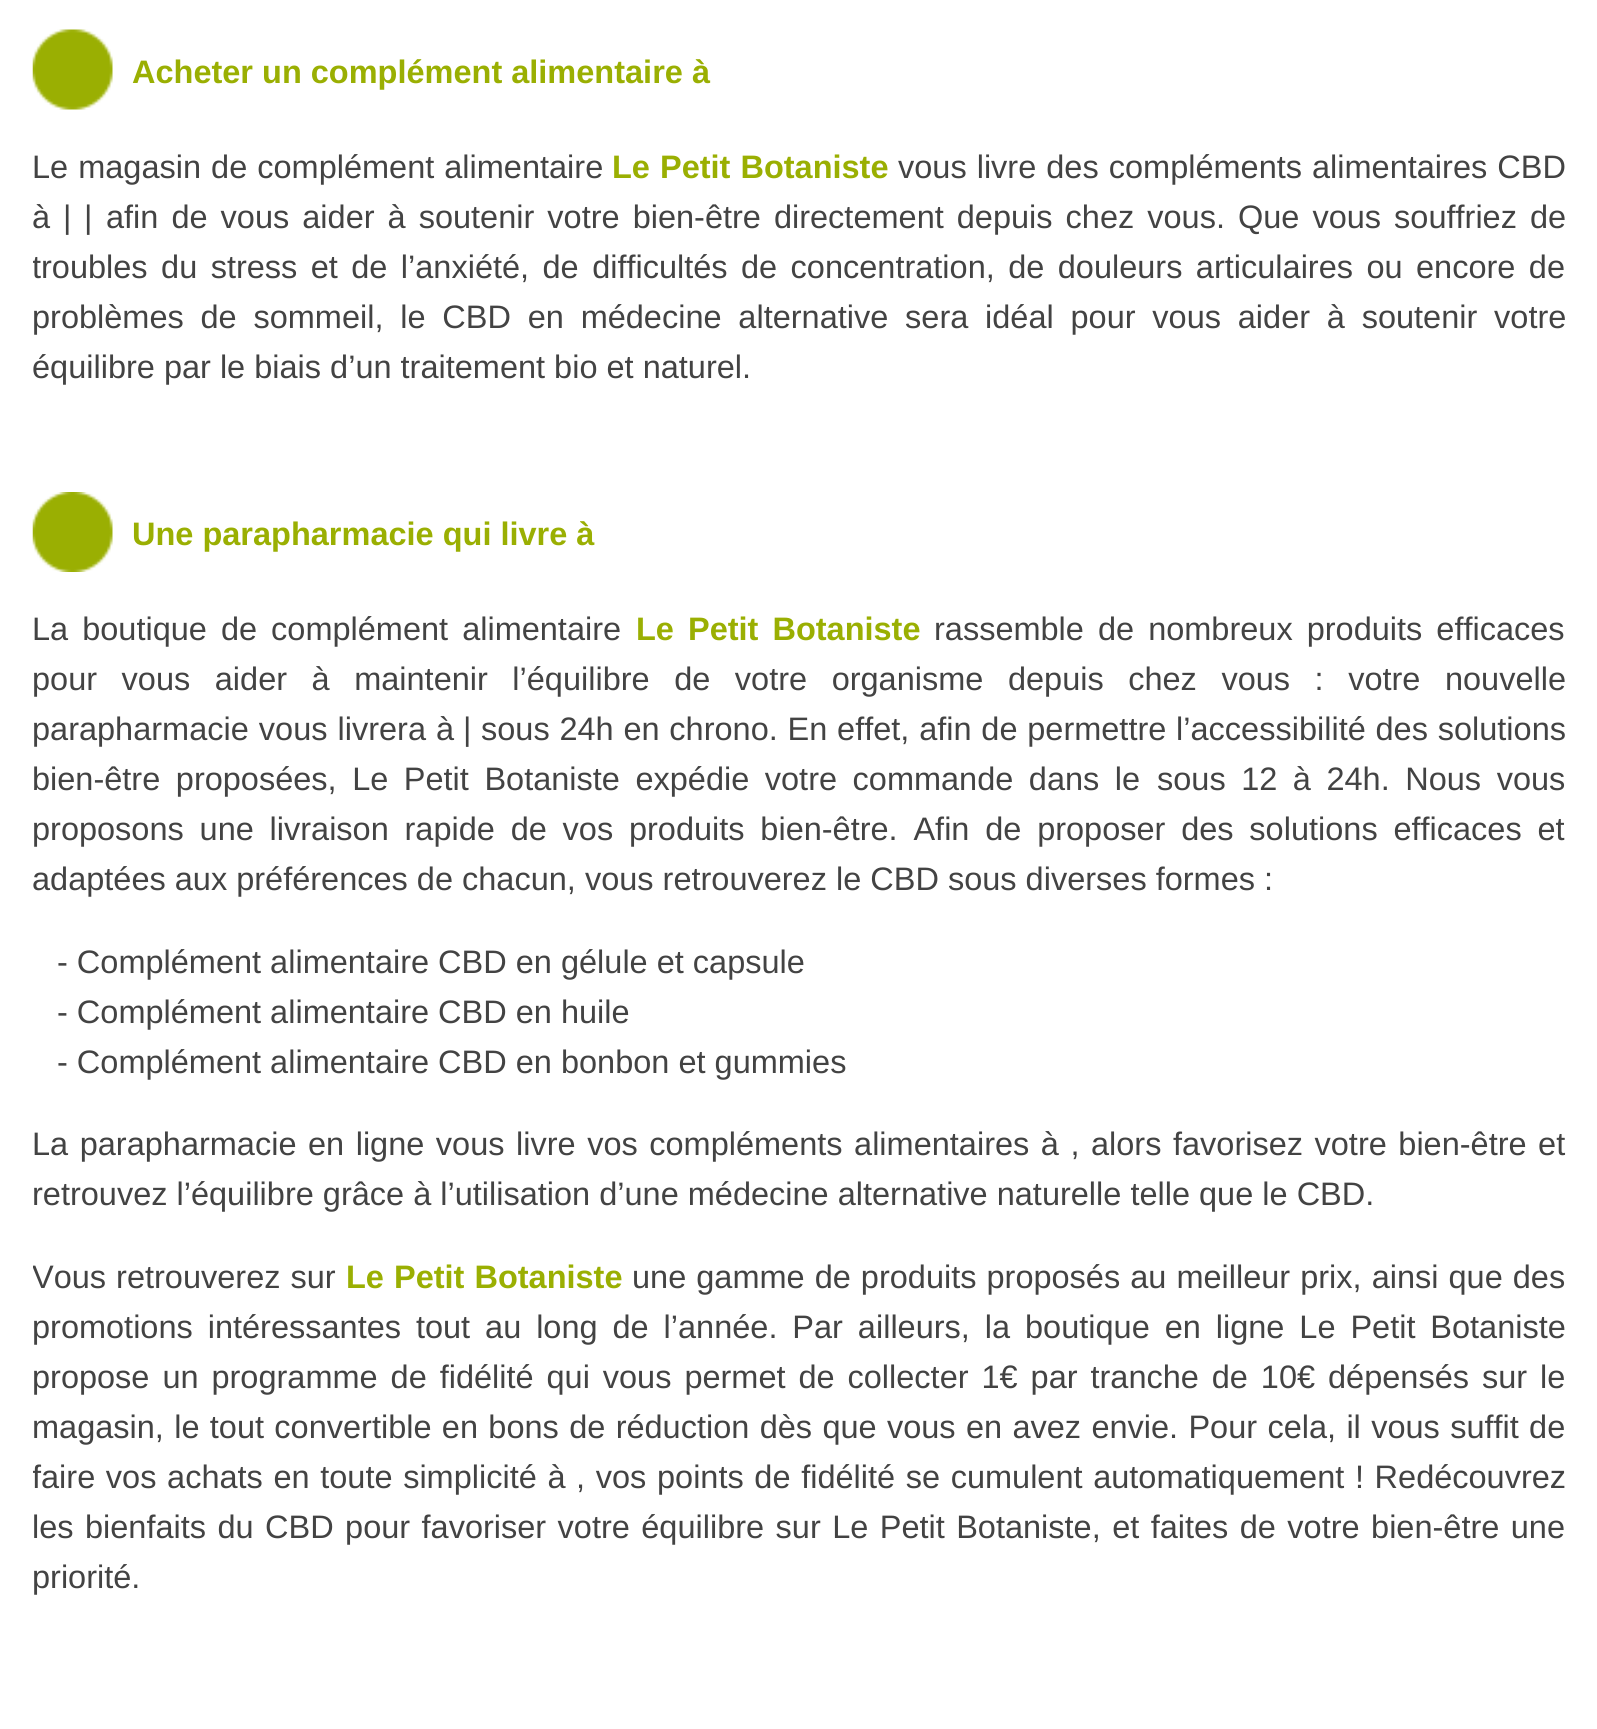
#include <cairo.h>
#include <math.h>
#include <stddef.h>


static void set_color(cairo_t *cr, unsigned color) {
    cairo_set_source_rgb(cr, (color >> 16) / 255.0, (color >> 8 & 255) / 255.0, (color & 255) / 255.0);
}

static void draw_text(cairo_t *cr, double x, double y, const char *s, const char *family, double size, int italic, int bold, unsigned color) {
    cairo_select_font_face(cr, family, italic ? CAIRO_FONT_SLANT_ITALIC : CAIRO_FONT_SLANT_NORMAL,
        bold ? CAIRO_FONT_WEIGHT_BOLD : CAIRO_FONT_WEIGHT_NORMAL);
    cairo_set_font_size(cr, size);
    set_color(cr, color);
    cairo_move_to(cr, x, y);
    cairo_show_text(cr, s);
}

static void draw_spaced(cairo_t *cr, double x, double y, const char *s, double letter, double word) {
    cairo_move_to(cr, x, y);
    while (*s) {
        char ch[5] = {0};
        int n = 0;
        do ch[n++] = *s++; while ((*s & 0xC0) == 0x80);
        cairo_show_text(cr, ch);
        cairo_rel_move_to(cr, letter + word * (*ch == ' '), 0);
    }
}

static void draw_image(cairo_t *cr, const char *path, double x, double y, double w, double h) {
    cairo_surface_t *image = cairo_image_surface_create_from_png(path);
    cairo_save(cr);
    cairo_set_source_surface(cr, image, x, y);
    cairo_rectangle(cr, x, y, w, h);
    cairo_fill(cr);
    cairo_restore(cr);
    cairo_surface_destroy(image);
}

int main(void) {
    cairo_surface_t *surface = cairo_image_surface_create(CAIRO_FORMAT_RGB24, 1597, 1729);
    cairo_t *cr = cairo_create(surface);
    cairo_font_options_t *options = cairo_font_options_create();
    cairo_font_options_set_hint_metrics(options, CAIRO_HINT_METRICS_OFF);
    cairo_font_options_set_hint_style(options, CAIRO_HINT_STYLE_NONE);
    cairo_set_font_options(cr, options);
    cairo_set_miter_limit(cr, 4);
    set_color(cr, 0xFFFFFF);
    cairo_paint(cr);
    draw_image(cr, "assets/img1.png", 32, 29, 81, 81);
    draw_text(cr, 132, 83, "Acheter un complément alimentaire à", "Liberation Sans", 32.5, 0, 1, 0x9AAF02);
    cairo_select_font_face(cr, "Liberation Sans", CAIRO_FONT_SLANT_NORMAL, CAIRO_FONT_WEIGHT_NORMAL);
    set_color(cr, 0x434343);
    draw_spaced(cr, 32, 178, "Le magasin de complément alimentaire", 0, 1);
    cairo_select_font_face(cr, "Liberation Sans", CAIRO_FONT_SLANT_NORMAL, CAIRO_FONT_WEIGHT_BOLD);
    set_color(cr, 0x9AAF02);
    draw_spaced(cr, 612, 178, "Le Petit Botaniste", 0, 1);
    cairo_select_font_face(cr, "Liberation Sans", CAIRO_FONT_SLANT_NORMAL, CAIRO_FONT_WEIGHT_NORMAL);
    set_color(cr, 0x434343);
    draw_spaced(cr, 898, 178, "vous livre des compléments alimentaires CBD", 0, 1);
    draw_text(cr, 32, 228, "à", "Liberation Sans", 32.5, 0, 0, 0x434343);
    draw_text(cr, 63, 228, "|", "Liberation Sans", 32.5, 0, 0, 0x434343);
    draw_text(cr, 84, 228, "|", "Liberation Sans", 32.5, 0, 0, 0x434343);
    draw_spaced(cr, 106, 228, "afin de vous aider à soutenir votre bien-être directement depuis chez vous. Que vous souffriez de", 0, 4);
    cairo_save(cr);
    cairo_rectangle(cr, 33, 0, 1532, 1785);
    cairo_clip(cr);
    draw_spaced(cr, 32, 278, "troubles du stress et de l’anxiété, de difficultés de concentration, de douleurs articulaires ou encore de", 0, 4.4);
    cairo_restore(cr);
    draw_spaced(cr, 32, 328, "problèmes de sommeil, le CBD en médecine alternative sera idéal pour vous aider à soutenir votre", 0, 7.75);
    draw_text(cr, 32, 378, "équilibre par le biais d’un traitement bio et naturel.", "Liberation Sans", 32.5, 0, 0, 0x434343);
    draw_image(cr, "assets/img2.png", 32, 492, 81, 80);
    draw_text(cr, 132, 545, "Une parapharmacie qui livre à", "Liberation Sans", 32.5, 0, 1, 0x9AAF02);
    cairo_select_font_face(cr, "Liberation Sans", CAIRO_FONT_SLANT_NORMAL, CAIRO_FONT_WEIGHT_NORMAL);
    set_color(cr, 0x434343);
    draw_spaced(cr, 32, 640, "La boutique de complément alimentaire", 0, 5);
    cairo_select_font_face(cr, "Liberation Sans", CAIRO_FONT_SLANT_NORMAL, CAIRO_FONT_WEIGHT_BOLD);
    set_color(cr, 0x9AAF02);
    draw_spaced(cr, 636, 640, "Le Petit Botaniste", 0, 5);
    cairo_select_font_face(cr, "Liberation Sans", CAIRO_FONT_SLANT_NORMAL, CAIRO_FONT_WEIGHT_NORMAL);
    set_color(cr, 0x434343);
    draw_spaced(cr, 934, 640, "rassemble de nombreux produits efficaces", 0, 5);
    draw_spaced(cr, 32, 690, "pour vous aider à maintenir l’équilibre de votre organisme depuis chez vous : votre nouvelle", 0, 15.5);
    draw_spaced(cr, 32, 740, "parapharmacie vous livrera à", 0, 1);
    draw_text(cr, 463, 740, "|", "Liberation Sans", 32.5, 0, 0, 0x434343);
    draw_spaced(cr, 481, 740, "sous 24h en chrono. En effet, afin de permettre l’accessibilité des solutions", 0, 0.75);
    draw_spaced(cr, 32, 790, "bien-être proposées, Le Petit Botaniste expédie votre commande dans le", 0, 6.5);
    draw_spaced(cr, 1157, 790, "sous 12 à 24h. Nous vous", 0, 6.5);
    draw_spaced(cr, 32, 840, "proposons une livraison rapide de vos produits bien-être. Afin de proposer des solutions efficaces et", 0, 6.75);
    draw_text(cr, 32, 890, "adaptées aux préférences de chacun, vous retrouverez le CBD sous diverses formes :", "Liberation Sans", 32.5, 0, 0, 0x434343);
    draw_text(cr, 57, 973, "- Complément alimentaire CBD en gélule et capsule", "Liberation Sans", 32.5, 0, 0, 0x434343);
    draw_text(cr, 57, 1023, "- Complément alimentaire CBD en huile", "Liberation Sans", 32.5, 0, 0, 0x434343);
    draw_text(cr, 57, 1073, "- Complément alimentaire CBD en bonbon et gummies", "Liberation Sans", 32.5, 0, 0, 0x434343);
    draw_spaced(cr, 32, 1155, "La parapharmacie en ligne vous livre vos compléments alimentaires à , alors favorisez votre bien-être et", 0, 2.5);
    draw_text(cr, 32, 1205, "retrouvez l’équilibre grâce à l’utilisation d’une médecine alternative naturelle telle que le CBD.", "Liberation Sans", 32.5, 0, 0, 0x434343);
    cairo_save(cr);
    cairo_rectangle(cr, 33, 0, 1532, 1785);
    cairo_clip(cr);
    draw_spaced(cr, 32, 1288, "Vous retrouverez sur", 0, 1);
    cairo_restore(cr);
    cairo_select_font_face(cr, "Liberation Sans", CAIRO_FONT_SLANT_NORMAL, CAIRO_FONT_WEIGHT_BOLD);
    set_color(cr, 0x9AAF02);
    draw_spaced(cr, 346, 1288, "Le Petit Botaniste", 0, 1);
    cairo_select_font_face(cr, "Liberation Sans", CAIRO_FONT_SLANT_NORMAL, CAIRO_FONT_WEIGHT_NORMAL);
    set_color(cr, 0x434343);
    draw_spaced(cr, 632, 1288, "une gamme de produits proposés au meilleur prix, ainsi que des", 0, 1);
    draw_spaced(cr, 32, 1338, "promotions intéressantes tout au long de l’année. Par ailleurs, la boutique en ligne Le Petit Botaniste", 0, 5.9);
    draw_spaced(cr, 32, 1388, "propose un programme de fidélité qui vous permet de collecter 1€ par tranche de 10€ dépensés sur le", 0, 3.9);
    draw_spaced(cr, 32, 1438, "magasin, le tout convertible en bons de réduction dès que vous en avez envie. Pour cela, il vous suffit de", 0, 1.3);
    cairo_save(cr);
    cairo_rectangle(cr, 33, 0, 1532, 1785);
    cairo_clip(cr);
    draw_spaced(cr, 32, 1488, "faire vos achats en toute simplicité à , vos points de fidélité se cumulent automatiquement ! Redécouvrez", 0, 1.6);
    cairo_restore(cr);
    draw_spaced(cr, 32, 1538, "les bienfaits du CBD pour favoriser votre équilibre sur Le Petit Botaniste, et faites de votre bien-être une", 0, 2.4);
    draw_text(cr, 32, 1588, "priorité.", "Liberation Sans", 32.5, 0, 0, 0x434343);
    cairo_surface_write_to_png(surface, "output.png");
    cairo_font_options_destroy(options);
    cairo_destroy(cr);
    cairo_surface_destroy(surface);
    return 0;
}
